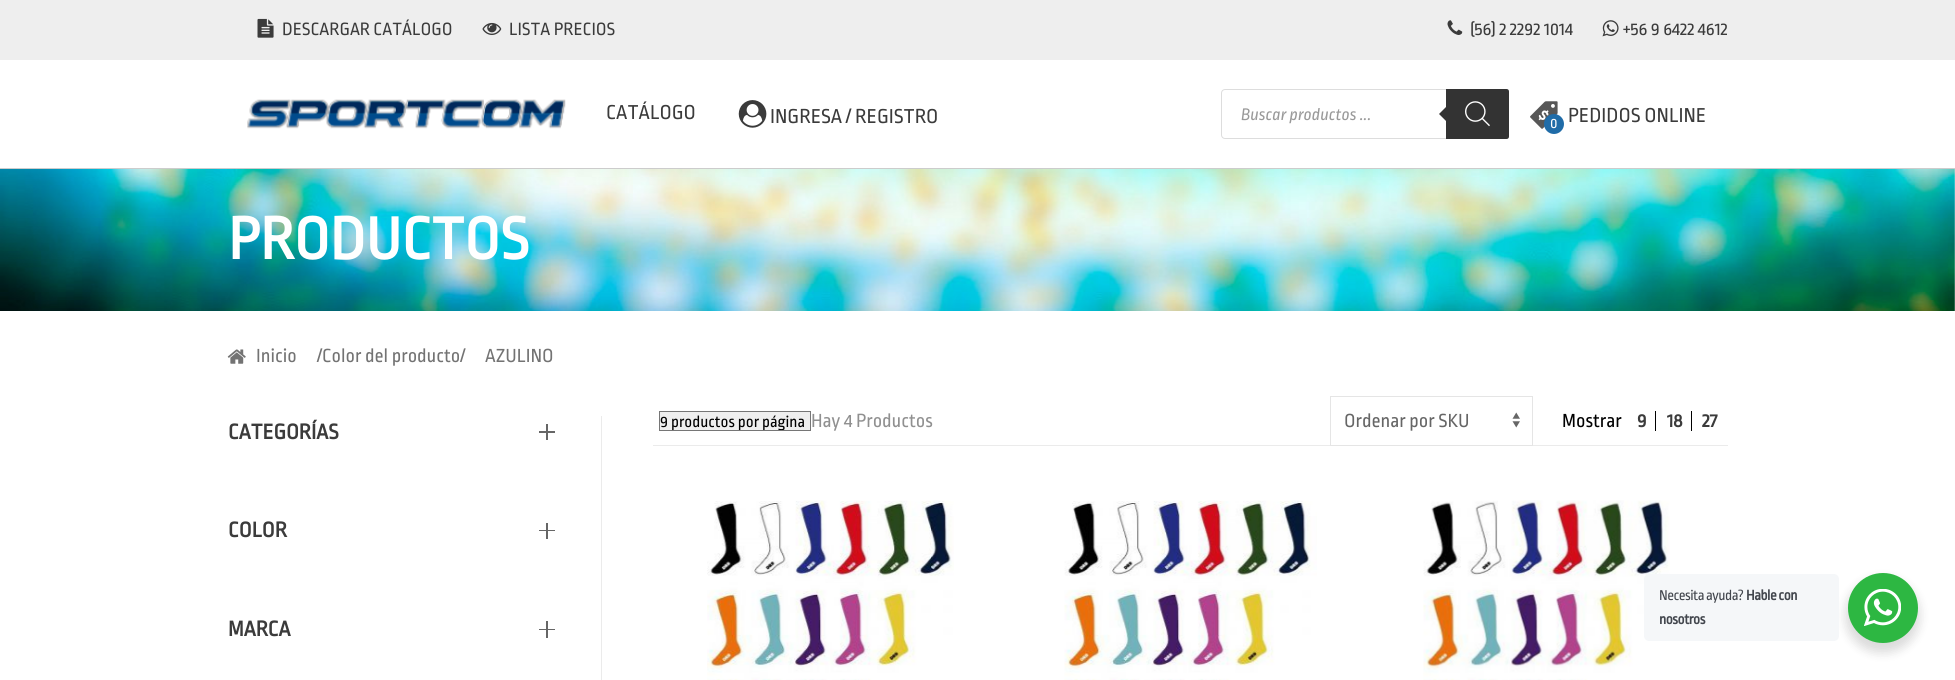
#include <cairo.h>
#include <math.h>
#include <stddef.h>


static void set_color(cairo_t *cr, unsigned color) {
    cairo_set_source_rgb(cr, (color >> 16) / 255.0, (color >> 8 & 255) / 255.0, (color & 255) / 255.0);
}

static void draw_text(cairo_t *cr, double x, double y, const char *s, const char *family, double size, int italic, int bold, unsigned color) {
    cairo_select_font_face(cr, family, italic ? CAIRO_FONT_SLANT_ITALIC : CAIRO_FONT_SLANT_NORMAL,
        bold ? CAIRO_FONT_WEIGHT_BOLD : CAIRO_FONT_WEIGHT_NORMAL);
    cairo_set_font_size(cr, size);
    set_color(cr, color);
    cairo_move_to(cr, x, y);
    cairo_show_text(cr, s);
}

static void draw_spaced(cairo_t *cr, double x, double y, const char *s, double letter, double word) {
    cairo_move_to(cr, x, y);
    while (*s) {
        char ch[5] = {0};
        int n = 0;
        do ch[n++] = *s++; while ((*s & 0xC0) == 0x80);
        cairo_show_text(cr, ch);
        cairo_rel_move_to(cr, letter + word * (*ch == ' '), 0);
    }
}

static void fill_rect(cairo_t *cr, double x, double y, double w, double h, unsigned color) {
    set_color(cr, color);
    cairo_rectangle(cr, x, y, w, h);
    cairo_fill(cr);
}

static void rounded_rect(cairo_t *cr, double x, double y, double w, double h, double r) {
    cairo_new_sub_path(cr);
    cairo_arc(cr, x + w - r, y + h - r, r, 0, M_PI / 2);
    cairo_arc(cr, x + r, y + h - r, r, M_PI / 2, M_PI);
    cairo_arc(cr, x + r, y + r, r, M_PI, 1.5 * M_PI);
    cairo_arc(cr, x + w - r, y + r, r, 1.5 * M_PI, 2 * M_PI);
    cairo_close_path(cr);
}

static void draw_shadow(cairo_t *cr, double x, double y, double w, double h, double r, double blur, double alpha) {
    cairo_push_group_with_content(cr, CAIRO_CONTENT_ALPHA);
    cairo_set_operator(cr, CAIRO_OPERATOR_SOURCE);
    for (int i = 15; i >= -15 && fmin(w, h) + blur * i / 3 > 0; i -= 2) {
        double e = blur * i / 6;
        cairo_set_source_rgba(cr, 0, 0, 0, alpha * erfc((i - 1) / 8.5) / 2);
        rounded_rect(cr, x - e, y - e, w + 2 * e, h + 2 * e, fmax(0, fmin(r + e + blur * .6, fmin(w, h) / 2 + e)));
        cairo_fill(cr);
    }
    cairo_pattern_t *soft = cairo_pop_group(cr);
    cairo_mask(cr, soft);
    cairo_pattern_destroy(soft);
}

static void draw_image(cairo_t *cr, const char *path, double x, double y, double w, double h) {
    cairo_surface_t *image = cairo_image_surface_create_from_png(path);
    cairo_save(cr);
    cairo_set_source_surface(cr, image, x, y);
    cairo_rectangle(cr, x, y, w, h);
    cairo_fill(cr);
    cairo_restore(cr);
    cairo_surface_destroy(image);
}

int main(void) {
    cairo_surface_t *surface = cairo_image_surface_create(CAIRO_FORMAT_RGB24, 1955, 680);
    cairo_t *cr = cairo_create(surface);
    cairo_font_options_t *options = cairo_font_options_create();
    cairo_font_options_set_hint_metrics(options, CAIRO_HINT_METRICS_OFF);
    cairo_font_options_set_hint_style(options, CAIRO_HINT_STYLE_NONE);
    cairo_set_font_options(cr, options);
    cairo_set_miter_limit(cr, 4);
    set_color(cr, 0xFFFFFF);
    cairo_paint(cr);
    fill_rect(cr, 0, 0, 1955, 60, 0xEEEEEE);
    draw_image(cr, "assets/img1.png", 257, 18, 17, 20);
    draw_text(cr, 282, 35, "DESCARGAR CATÁLOGO", "Ropa Sans", 18.75, 0, 0, 0x3B3B3B);
    draw_image(cr, "assets/img2.png", 482, 22, 20, 13);
    draw_text(cr, 509, 35, "LISTA PRECIOS", "Ropa Sans", 18.75, 0, 0, 0x3B3B3B);
    draw_image(cr, "assets/img3.png", 1447, 20, 16, 15);
    draw_text(cr, 1470, 35, "(56) 2 2292 1014", "Ropa Sans", 18.75, 0, 0, 0x3B3B3B);
    draw_image(cr, "assets/img4.png", 1602, 20, 17, 17);
    draw_text(cr, 1623, 35, "+56 9 6422 4612", "Ropa Sans", 18.75, 0, 0, 0x3B3B3B);
    fill_rect(cr, 0, 168, 1955, 1, 0xCCCCCC);
    draw_image(cr, "assets/img5.png", 247, 99, 319, 30);
    draw_text(cr, 606, 119, "CATÁLOGO", "Ropa Sans", 21.25, 0, 0, 0x3B3B3B);
    draw_image(cr, "assets/img6.png", 738, 100, 29, 28);
    draw_text(cr, 770, 123, "INGRESA / REGISTRO", "Ropa Sans", 21.25, 0, 0, 0x3B3B3B);
    rounded_rect(cr, 1221.5, 89.5, 287, 49, 3.5);
    set_color(cr, 0xDDDDDD);
    cairo_set_line_width(cr, 1);
    cairo_stroke(cr);
    draw_text(cr, 1241, 120, "Buscar productos ...", "Ropa Sans", 17.5, 1, 0, 0x999999);
    set_color(cr, 0x333333);
    cairo_new_path(cr);
    cairo_move_to(cr, 1446, 89);
    cairo_line_to(cr, 1506.5, 89);
    cairo_curve_to(cr, 1508, 89, 1509, 90, 1509, 91.5);
    cairo_line_to(cr, 1509, 136.5);
    cairo_curve_to(cr, 1509, 138, 1508, 139, 1506.5, 139);
    cairo_line_to(cr, 1446, 139);
    cairo_close_path(cr);
    cairo_fill(cr);
    cairo_new_path(cr);
    cairo_move_to(cr, 1449, 104);
    cairo_line_to(cr, 1449, 124);
    cairo_line_to(cr, 1439, 114);
    cairo_close_path(cr);
    cairo_fill(cr);
    draw_image(cr, "assets/img7.png", 1465, 101, 25, 26);
    draw_image(cr, "assets/img8.png", 1530, 101, 28, 28);
    set_color(cr, 0x206CA8);
    cairo_arc(cr, 1554, 124, 10, 0, 2 * M_PI);
    cairo_fill(cr);
    draw_text(cr, 1550, 128, "0", "Ropa Sans", 15, 0, 0, 0xFFFFFF);
    draw_text(cr, 1568, 122, "PEDIDOS ONLINE", "Ropa Sans", 21.25, 0, 0, 0x3B3B3B);
    draw_image(cr, "assets/img9.png", 0, 169, 1955, 142);
    draw_text(cr, 228, 259, "PRODUCTOS", "Ropa Sans", 62.5, 0, 1, 0xFFFFFF);
    draw_image(cr, "assets/img10.png", 227, 349, 19, 15);
    draw_text(cr, 256, 362, "Inicio", "Ropa Sans", 20, 0, 0, 0x737373);
    draw_text(cr, 317, 362, "/Color del producto/", "Ropa Sans", 20, 0, 0, 0x737373);
    draw_text(cr, 485, 362, "AZULINO", "Ropa Sans", 20, 0, 0, 0x737373);
    fill_rect(cr, 601, 416, 1, 264, 0xEBEBEB);
    draw_text(cr, 228, 439, "CATEGORÍAS", "Ropa Sans", 22.5, 0, 1, 0x3B3B3B);
    fill_rect(cr, 539, 431, 16, 2, 0x666666);
    fill_rect(cr, 546, 424, 2, 16, 0x666666);
    draw_text(cr, 228, 537, "COLOR", "Ropa Sans", 22.5, 0, 1, 0x3B3B3B);
    fill_rect(cr, 539, 530, 16, 1, 0x666666);
    fill_rect(cr, 546, 523, 2, 16, 0x666666);
    draw_text(cr, 228, 636, "MARCA", "Ropa Sans", 22.5, 0, 1, 0x3B3B3B);
    fill_rect(cr, 539, 629, 16, 1, 0x666666);
    fill_rect(cr, 546, 621, 2, 17, 0x666666);
    fill_rect(cr, 653, 445, 1075, 1, 0xEBEBEB);
    set_color(cr, 0xEFEFEF);
    cairo_rectangle(cr, 659.5, 411.5, 151, 19);
    cairo_fill_preserve(cr);
    set_color(cr, 0x767676);
    cairo_stroke(cr);
    cairo_save(cr);
    cairo_rectangle(cr, 660, 413, 150, 17);
    cairo_clip(cr);
    draw_text(cr, 660, 427, "9 productos por página", "Ropa Sans", 16.75, 0, 0, 0x000000);
    cairo_restore(cr);
    draw_text(cr, 811, 427, "Hay 4 Productos", "Ropa Sans", 20, 0, 0, 0x909090);
    draw_image(cr, "assets/img11.png", 1512, 412, 8, 16);
    cairo_rectangle(cr, 1330.5, 396.5, 202, 49);
    set_color(cr, 0xE5E5E5);
    cairo_stroke(cr);
    draw_text(cr, 1344, 427, "Ordenar por SKU", "Ropa Sans", 20, 0, 0, 0x666666);
    draw_text(cr, 1562, 427, "Mostrar", "Ropa Sans", 20, 0, 0, 0x000000);
    fill_rect(cr, 1655, 411, 1, 20, 0x000000);
    draw_text(cr, 1637, 427, "9", "Ropa Sans", 20, 0, 1, 0x3B3B3B);
    fill_rect(cr, 1691, 411, 1, 20, 0x000000);
    draw_text(cr, 1667, 427, "18", "Ropa Sans", 20, 0, 1, 0x3B3B3B);
    draw_text(cr, 1702, 427, "27", "Ropa Sans", 20, 0, 1, 0x3B3B3B);
    draw_image(cr, "assets/img12.png", 707, 500, 247, 180);
    draw_image(cr, "assets/img13.png", 1064, 500, 253, 180);
    draw_image(cr, "assets/img14.png", 1423, 500, 247, 180);
    set_color(cr, 0x000000);
    draw_shadow(cr, 1845, 578, 75, 75, 37.5, 5, 0.14);
    set_color(cr, 0xF5F7F9);
    rounded_rect(cr, 1644, 574, 195, 67, 5);
    cairo_fill(cr);
    cairo_select_font_face(cr, "Ropa Sans", CAIRO_FONT_SLANT_NORMAL, CAIRO_FONT_WEIGHT_NORMAL);
    cairo_set_font_size(cr, 15);
    set_color(cr, 0x43474E);
    draw_spaced(cr, 1659, 600, "Necesita ayuda?", -0.5, 0);
    cairo_select_font_face(cr, "Ropa Sans", CAIRO_FONT_SLANT_NORMAL, CAIRO_FONT_WEIGHT_BOLD);
    draw_spaced(cr, 1746, 600, "Hable con", -0.5, 0);
    draw_spaced(cr, 1659, 624, "nosotros", -0.5, 0);
    set_color(cr, 0x2DB742);
    cairo_new_path(cr);
    cairo_arc(cr, 1883, 608, 35, 0, 2 * M_PI);
    cairo_fill(cr);
    draw_image(cr, "assets/img15.png", 1864, 589, 37, 37);
    cairo_surface_write_to_png(surface, "output.png");
    cairo_font_options_destroy(options);
    cairo_destroy(cr);
    cairo_surface_destroy(surface);
    return 0;
}
